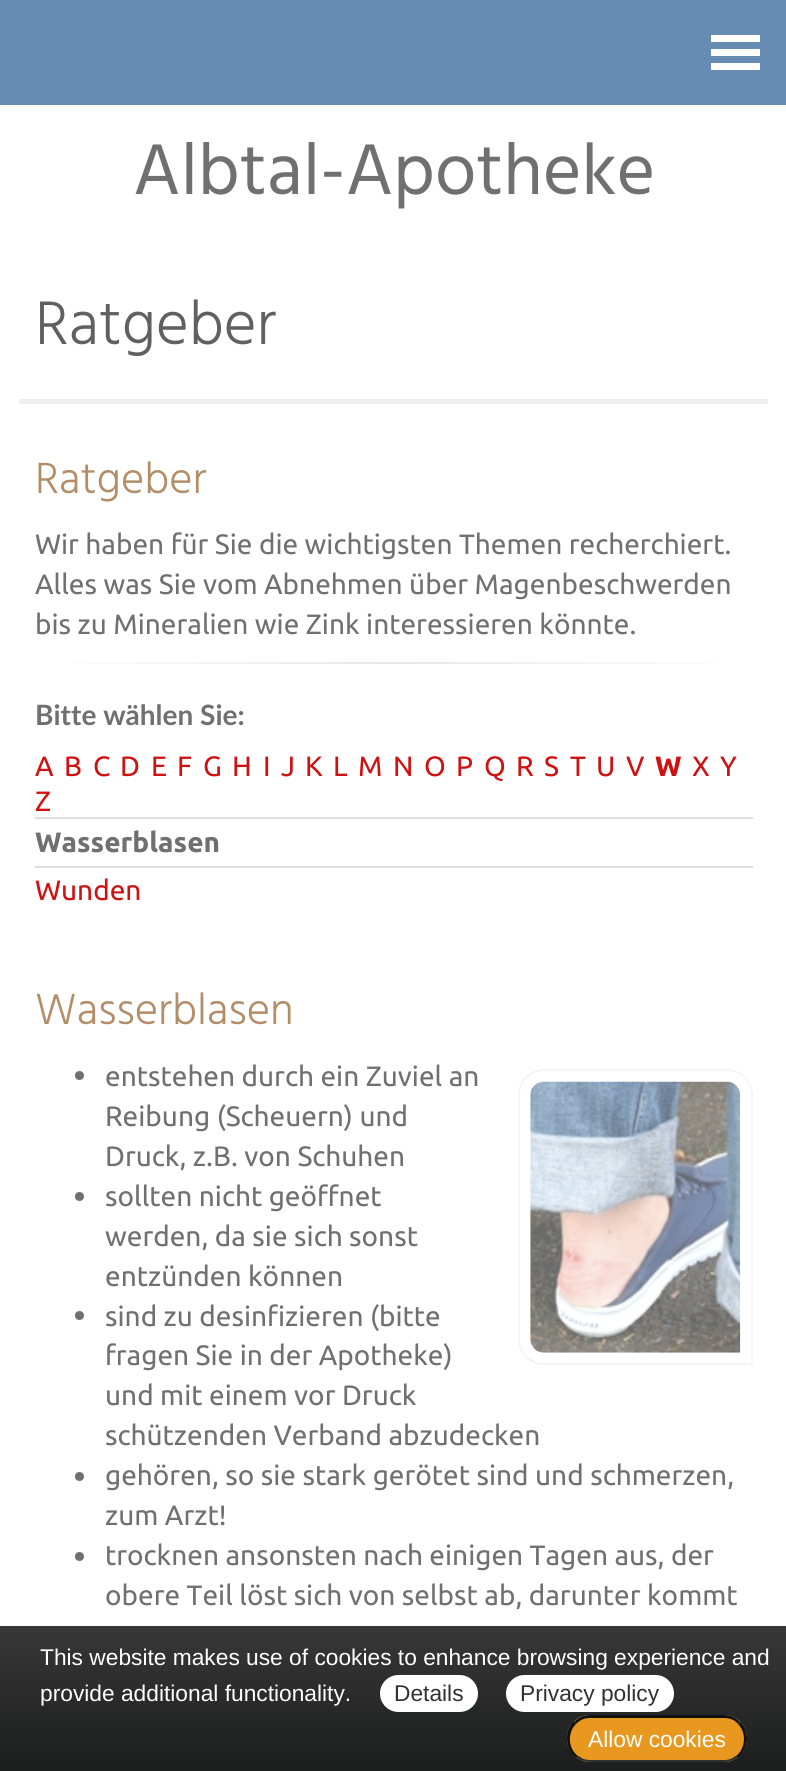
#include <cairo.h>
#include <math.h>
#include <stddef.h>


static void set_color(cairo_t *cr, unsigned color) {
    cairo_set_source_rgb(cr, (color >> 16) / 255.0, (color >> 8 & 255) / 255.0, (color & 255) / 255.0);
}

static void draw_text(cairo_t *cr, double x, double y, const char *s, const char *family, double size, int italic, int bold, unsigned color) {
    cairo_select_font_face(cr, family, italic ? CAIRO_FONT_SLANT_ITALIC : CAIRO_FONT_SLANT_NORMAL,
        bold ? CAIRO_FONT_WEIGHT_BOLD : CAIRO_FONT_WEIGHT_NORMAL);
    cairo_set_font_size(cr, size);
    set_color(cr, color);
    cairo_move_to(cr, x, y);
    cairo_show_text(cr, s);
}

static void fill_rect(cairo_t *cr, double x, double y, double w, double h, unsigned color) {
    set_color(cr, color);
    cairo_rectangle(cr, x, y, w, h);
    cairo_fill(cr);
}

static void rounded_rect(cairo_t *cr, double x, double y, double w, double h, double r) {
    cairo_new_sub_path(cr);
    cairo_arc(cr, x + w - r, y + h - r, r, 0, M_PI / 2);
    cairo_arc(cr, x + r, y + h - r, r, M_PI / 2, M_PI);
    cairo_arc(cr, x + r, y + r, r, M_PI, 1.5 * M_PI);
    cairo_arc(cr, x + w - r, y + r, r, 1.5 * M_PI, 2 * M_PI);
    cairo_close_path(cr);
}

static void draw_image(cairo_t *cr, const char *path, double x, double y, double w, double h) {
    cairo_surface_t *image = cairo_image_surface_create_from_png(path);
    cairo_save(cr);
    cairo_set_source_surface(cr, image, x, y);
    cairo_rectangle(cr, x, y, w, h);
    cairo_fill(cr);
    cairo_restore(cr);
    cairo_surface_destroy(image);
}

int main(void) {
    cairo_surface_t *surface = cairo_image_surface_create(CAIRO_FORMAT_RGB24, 786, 1771);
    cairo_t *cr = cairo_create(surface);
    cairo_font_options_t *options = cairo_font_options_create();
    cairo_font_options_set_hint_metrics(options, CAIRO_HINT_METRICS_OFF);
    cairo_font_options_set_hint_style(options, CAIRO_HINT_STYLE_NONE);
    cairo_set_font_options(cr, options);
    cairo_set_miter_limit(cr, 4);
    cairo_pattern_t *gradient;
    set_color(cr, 0xFFFFFF);
    cairo_paint(cr);
    fill_rect(cr, 0, 0, 786, 105, 0x678CB3);
    fill_rect(cr, 711, 35, 49, 7, 0xFFFFFF);
    fill_rect(cr, 711, 49, 49, 7, 0xFFFFFF);
    fill_rect(cr, 711, 63, 49, 7, 0xFFFFFF);
    draw_text(cr, 133, 194, "Albtal-Apotheke", "Hind", 73.5, 0, 0, 0x707070);
    fill_rect(cr, 19, 399, 749, 5, 0xEFEFEF);
    draw_text(cr, 35, 344, "Ratgeber", "Hind Light", 63, 0, 0, 0x606060);
    draw_text(cr, 35, 493, "Ratgeber", "Hind Light", 44.75, 0, 0, 0xB38D67);
    draw_text(cr, 35, 554, "Wir haben für Sie die wichtigsten Themen recherchiert.", "Ubuntu", 28, 0, 0, 0x707070);
    draw_text(cr, 35, 594, "Alles was Sie vom Abnehmen über Magenbeschwerden", "Ubuntu", 28, 0, 0, 0x707070);
    draw_text(cr, 35, 634, "bis zu Mineralien wie Zink interessieren könnte.", "Ubuntu", 28, 0, 0, 0x707070);
    gradient = cairo_pattern_create_linear(35, 662, 753, 662);
    cairo_pattern_add_color_stop_rgba(gradient, 0, 1, 1, 1, 1);
    cairo_pattern_add_color_stop_rgba(gradient, 0.5, 0.906, 0.906, 0.906, 1);
    cairo_pattern_add_color_stop_rgba(gradient, 1, 1, 1, 1, 1);
    cairo_set_source(cr, gradient);
    cairo_pattern_destroy(gradient);
    cairo_rectangle(cr, 72, 662, 644, 2);
    cairo_fill(cr);
    draw_text(cr, 35, 725, "Bitte wählen Sie:", "Lato", 28, 0, 1, 0x707070);
    draw_text(cr, 35, 776, "A", "Ubuntu", 28, 0, 0, 0xCF1111);
    draw_text(cr, 64, 776, "B", "Ubuntu", 28, 0, 0, 0xCF1111);
    draw_text(cr, 93, 776, "C", "Ubuntu", 28, 0, 0, 0xCF1111);
    draw_text(cr, 120, 776, "D", "Ubuntu", 28, 0, 0, 0xCF1111);
    draw_text(cr, 151, 776, "E", "Ubuntu", 28, 0, 0, 0xCF1111);
    draw_text(cr, 177, 776, "F", "Ubuntu", 28, 0, 0, 0xCF1111);
    draw_text(cr, 203, 776, "G", "Ubuntu", 28, 0, 0, 0xCF1111);
    draw_text(cr, 232, 776, "H", "Ubuntu", 28, 0, 0, 0xCF1111);
    draw_text(cr, 263, 776, "I", "Ubuntu", 28, 0, 0, 0xCF1111);
    draw_text(cr, 281, 776, "J", "Ubuntu", 28, 0, 0, 0xCF1111);
    draw_text(cr, 305, 776, "K", "Ubuntu", 28, 0, 0, 0xCF1111);
    draw_text(cr, 333, 776, "L", "Ubuntu", 28, 0, 0, 0xCF1111);
    draw_text(cr, 358, 776, "M", "Ubuntu", 28, 0, 0, 0xCF1111);
    draw_text(cr, 393, 776, "N", "Ubuntu", 28, 0, 0, 0xCF1111);
    draw_text(cr, 424, 776, "O", "Ubuntu", 28, 0, 0, 0xCF1111);
    draw_text(cr, 456, 776, "P", "Ubuntu", 28, 0, 0, 0xCF1111);
    draw_text(cr, 484, 776, "Q", "Ubuntu", 28, 0, 0, 0xCF1111);
    draw_text(cr, 516, 776, "R", "Ubuntu", 28, 0, 0, 0xCF1111);
    draw_text(cr, 544, 776, "S", "Ubuntu", 28, 0, 0, 0xCF1111);
    draw_text(cr, 570, 776, "T", "Ubuntu", 28, 0, 0, 0xCF1111);
    draw_text(cr, 596, 776, "U", "Ubuntu", 28, 0, 0, 0xCF1111);
    draw_text(cr, 626, 776, "V", "Ubuntu", 28, 0, 0, 0xCF1111);
    draw_text(cr, 655, 776, "W", "Ubuntu", 28, 0, 1, 0xCF1111);
    draw_text(cr, 692, 776, "X", "Ubuntu", 28, 0, 0, 0xCF1111);
    draw_text(cr, 720, 776, "Y", "Ubuntu", 28, 0, 0, 0xCF1111);
    draw_text(cr, 35, 811, "Z", "Ubuntu", 28, 0, 0, 0xCF1111);
    fill_rect(cr, 35, 817, 718, 2, 0xDFDFDF);
    draw_text(cr, 35, 852, "Wasserblasen", "Ubuntu", 28, 0, 1, 0x707070);
    fill_rect(cr, 35, 866, 718, 2, 0xDFDFDF);
    draw_text(cr, 35, 900, "Wunden", "Ubuntu", 28, 0, 0, 0xCF1111);
    draw_text(cr, 35, 1024, "Wasserblasen", "Hind Light", 44.75, 0, 0, 0xB38D67);
    set_color(cr, 0x707070);
    cairo_new_path(cr);
    cairo_arc(cr, 79.5, 1075.5, 4.5, 0, 2 * M_PI);
    cairo_fill(cr);
    draw_text(cr, 105, 1086, "entstehen durch ein Zuviel an", "Ubuntu", 28, 0, 0, 0x707070);
    draw_text(cr, 105, 1126, "Reibung (Scheuern) und", "Ubuntu", 28, 0, 0, 0x707070);
    draw_text(cr, 105, 1166, "Druck, z.B. von Schuhen", "Ubuntu", 28, 0, 0, 0x707070);
    cairo_new_path(cr);
    cairo_arc(cr, 79.5, 1196.5, 4.5, 0, 2 * M_PI);
    cairo_fill(cr);
    draw_text(cr, 105, 1206, "sollten nicht geöffnet", "Ubuntu", 28, 0, 0, 0x707070);
    draw_text(cr, 105, 1246, "werden, da sie sich sonst", "Ubuntu", 28, 0, 0, 0x707070);
    draw_text(cr, 105, 1286, "entzünden können", "Ubuntu", 28, 0, 0, 0x707070);
    cairo_new_path(cr);
    cairo_arc(cr, 79.5, 1315.5, 4.5, 0, 2 * M_PI);
    cairo_fill(cr);
    draw_text(cr, 105, 1326, "sind zu desinfizieren (bitte", "Ubuntu", 28, 0, 0, 0x707070);
    draw_text(cr, 105, 1365, "fragen Sie in der Apotheke)", "Ubuntu", 28, 0, 0, 0x707070);
    draw_text(cr, 105, 1405, "und mit einem vor Druck", "Ubuntu", 28, 0, 0, 0x707070);
    draw_text(cr, 105, 1445, "schützenden Verband abzudecken", "Ubuntu", 28, 0, 0, 0x707070);
    cairo_new_path(cr);
    cairo_arc(cr, 79.5, 1476.5, 4.5, 0, 2 * M_PI);
    cairo_fill(cr);
    draw_text(cr, 105, 1485, "gehören, so sie stark gerötet sind und schmerzen,", "Ubuntu", 28, 0, 0, 0x707070);
    draw_text(cr, 105, 1525, "zum Arzt!", "Ubuntu", 28, 0, 0, 0x707070);
    cairo_new_path(cr);
    cairo_arc(cr, 79.5, 1556.5, 4.5, 0, 2 * M_PI);
    cairo_fill(cr);
    draw_text(cr, 105, 1565, "trocknen ansonsten nach einigen Tagen aus, der", "Ubuntu", 28, 0, 0, 0x707070);
    draw_text(cr, 105, 1605, "obere Teil löst sich von selbst ab, darunter kommt", "Ubuntu", 28, 0, 0, 0x707070);
    cairo_new_path(cr);
    cairo_move_to(cr, 544, 1070);
    cairo_line_to(cr, 727, 1070);
    cairo_curve_to(cr, 741, 1070, 752, 1081, 752, 1095);
    cairo_line_to(cr, 752, 1364);
    cairo_line_to(cr, 544, 1364);
    cairo_curve_to(cr, 530, 1364, 519, 1353, 519, 1339);
    cairo_line_to(cr, 519, 1095);
    cairo_curve_to(cr, 519, 1081, 530, 1070, 544, 1070);
    cairo_close_path(cr);
    set_color(cr, 0xF5F5F5);
    cairo_stroke(cr);
    draw_image(cr, "assets/img1.png", 530, 1081, 211, 272);
    fill_rect(cr, 0, 1710, 786, 61, 0xEEF6FC);
    fill_rect(cr, 0, 1708, 786, 2, 0xD5E6F7);
    gradient = cairo_pattern_create_linear(394, 1626, 394, 1771);
    cairo_pattern_add_color_stop_rgba(gradient, 0, 0.176, 0.176, 0.176, 0.95);
    cairo_pattern_add_color_stop_rgba(gradient, 1, 0.067, 0.067, 0.067, 0.95);
    cairo_set_source(cr, gradient);
    cairo_pattern_destroy(gradient);
    cairo_rectangle(cr, 0, 1626, 786, 145);
    cairo_fill(cr);
    draw_text(cr, 40, 1665, "This website makes use of cookies to enhance browsing experience and", "Liberation Sans", 22.75, 0, 0, 0xFFFFFF);
    draw_text(cr, 40, 1701, "provide additional functionality.", "Liberation Sans", 22.75, 0, 0, 0xFFFFFF);
    rounded_rect(cr, 380, 1675, 98, 37, 18.5);
    cairo_fill(cr);
    draw_text(cr, 394, 1701, "Details", "Liberation Sans", 22.75, 0, 0, 0x313131);
    set_color(cr, 0xFFFFFF);
    rounded_rect(cr, 506, 1675, 168, 37, 18.5);
    cairo_fill(cr);
    draw_text(cr, 520, 1701, "Privacy policy", "Liberation Sans", 22.75, 0, 0, 0x313131);
    set_color(cr, 0xE8981E);
    rounded_rect(cr, 567, 1715, 180, 47, 23);
    cairo_fill(cr);
    set_color(cr, 0x111111);
    cairo_new_path(cr);
    cairo_move_to(cr, 590, 1715);
    cairo_curve_to(cr, 584, 1715, 578, 1718, 574, 1722);
    cairo_line_to(cr, 576, 1724);
    cairo_curve_to(cr, 580, 1720, 584, 1718, 590, 1718);
    cairo_line_to(cr, 724, 1718);
    cairo_curve_to(cr, 730, 1718, 735, 1720, 738, 1724);
    cairo_line_to(cr, 740, 1722);
    cairo_curve_to(cr, 736, 1718, 731, 1715, 724, 1715);
    cairo_close_path(cr);
    cairo_fill(cr);
    cairo_new_path(cr);
    cairo_move_to(cr, 740.5, 1722);
    cairo_curve_to(cr, 750, 1731.5, 749, 1749.5, 738, 1757.5);
    cairo_line_to(cr, 735.5, 1756.5);
    cairo_curve_to(cr, 745.5, 1749, 747, 1733, 738, 1724);
    cairo_close_path(cr);
    cairo_fill(cr);
    set_color(cr, 0x313131);
    cairo_new_path(cr);
    cairo_move_to(cr, 738, 1758);
    cairo_curve_to(cr, 734, 1760, 729, 1762, 724, 1762);
    cairo_line_to(cr, 590, 1762);
    cairo_curve_to(cr, 585, 1762, 580, 1760, 576, 1758);
    cairo_line_to(cr, 579, 1756);
    cairo_curve_to(cr, 582, 1759, 586, 1760, 590, 1760);
    cairo_line_to(cr, 724, 1760);
    cairo_curve_to(cr, 728, 1760, 732, 1759, 735, 1756);
    cairo_close_path(cr);
    cairo_fill(cr);
    set_color(cr, 0x111111);
    cairo_new_path(cr);
    cairo_move_to(cr, 567, 1738);
    cairo_curve_to(cr, 567, 1746, 569.5, 1753, 576, 1757.5);
    cairo_line_to(cr, 578.5, 1756.5);
    cairo_curve_to(cr, 568, 1749, 567, 1733, 576, 1724);
    cairo_line_to(cr, 573.5, 1721.5);
    cairo_curve_to(cr, 569.5, 1726, 567, 1731.5, 567, 1738);
    cairo_close_path(cr);
    cairo_fill(cr);
    draw_text(cr, 588, 1747, "Allow cookies", "Liberation Sans", 22.75, 0, 0, 0xFFFFFF);
    cairo_surface_write_to_png(surface, "output.png");
    cairo_font_options_destroy(options);
    cairo_destroy(cr);
    cairo_surface_destroy(surface);
    return 0;
}
